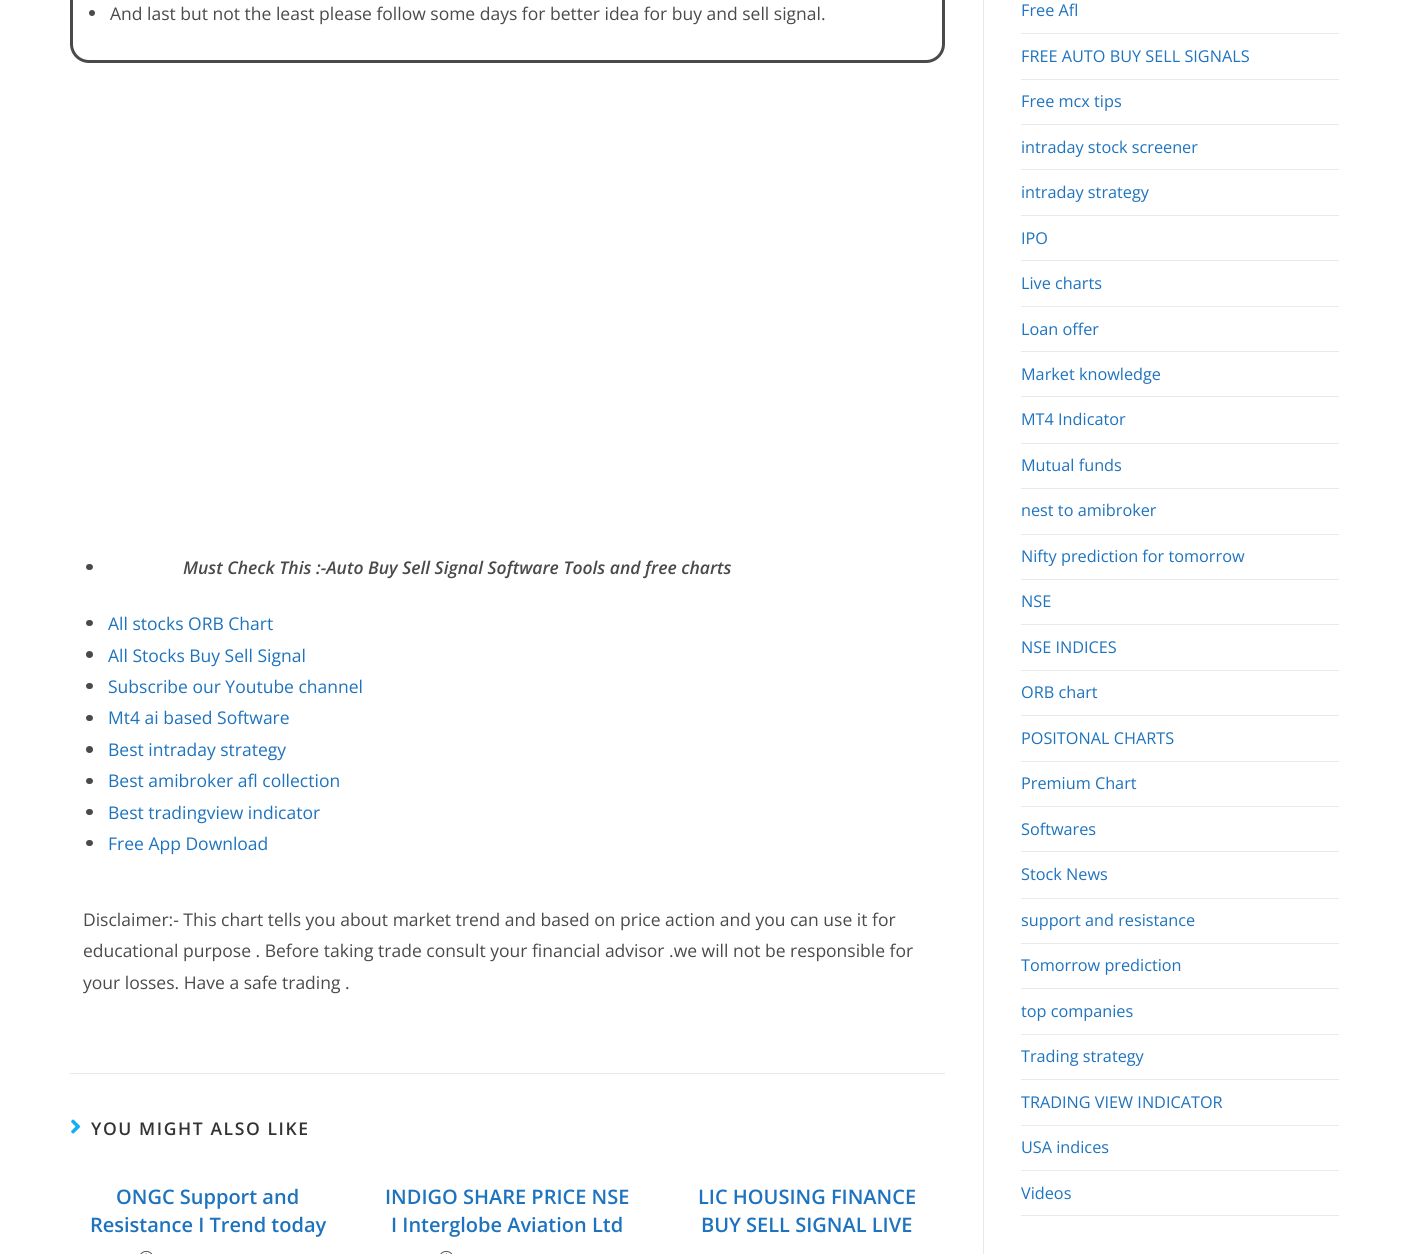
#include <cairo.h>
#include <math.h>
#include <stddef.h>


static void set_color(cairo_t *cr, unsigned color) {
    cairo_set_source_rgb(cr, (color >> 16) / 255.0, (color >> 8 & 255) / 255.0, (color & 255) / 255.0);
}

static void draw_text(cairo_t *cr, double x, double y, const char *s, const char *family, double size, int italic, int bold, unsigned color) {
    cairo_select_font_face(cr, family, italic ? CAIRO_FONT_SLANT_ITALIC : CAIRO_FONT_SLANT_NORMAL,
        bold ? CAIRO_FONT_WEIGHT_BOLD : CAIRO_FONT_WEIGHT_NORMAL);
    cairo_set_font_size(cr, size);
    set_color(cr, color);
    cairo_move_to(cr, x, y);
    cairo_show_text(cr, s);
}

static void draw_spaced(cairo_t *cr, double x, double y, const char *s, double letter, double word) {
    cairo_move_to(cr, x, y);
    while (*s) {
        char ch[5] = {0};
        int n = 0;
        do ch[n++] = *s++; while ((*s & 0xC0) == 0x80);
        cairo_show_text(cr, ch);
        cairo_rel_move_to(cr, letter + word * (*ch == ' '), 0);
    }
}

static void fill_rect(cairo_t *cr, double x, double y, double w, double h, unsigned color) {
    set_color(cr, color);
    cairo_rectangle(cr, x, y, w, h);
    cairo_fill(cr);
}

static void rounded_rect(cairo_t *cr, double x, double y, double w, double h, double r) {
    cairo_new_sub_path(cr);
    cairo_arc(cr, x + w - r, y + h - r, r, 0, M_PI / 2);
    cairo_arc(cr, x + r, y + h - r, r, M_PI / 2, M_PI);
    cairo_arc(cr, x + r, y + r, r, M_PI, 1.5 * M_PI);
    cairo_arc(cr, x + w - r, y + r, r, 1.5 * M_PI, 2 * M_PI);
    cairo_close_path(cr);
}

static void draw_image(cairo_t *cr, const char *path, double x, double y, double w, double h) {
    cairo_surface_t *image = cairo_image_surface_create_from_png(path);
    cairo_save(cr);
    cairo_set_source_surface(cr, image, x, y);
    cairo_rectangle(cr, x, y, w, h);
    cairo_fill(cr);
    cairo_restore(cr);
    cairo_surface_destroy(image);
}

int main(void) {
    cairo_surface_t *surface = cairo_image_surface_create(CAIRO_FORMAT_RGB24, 1408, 1254);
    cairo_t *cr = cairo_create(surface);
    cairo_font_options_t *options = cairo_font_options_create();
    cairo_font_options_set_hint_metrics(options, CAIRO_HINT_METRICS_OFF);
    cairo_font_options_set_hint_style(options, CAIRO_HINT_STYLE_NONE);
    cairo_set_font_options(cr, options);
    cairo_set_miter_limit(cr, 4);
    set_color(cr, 0xFFFFFF);
    cairo_paint(cr);
    fill_rect(cr, 983, 0, 1, 1254, 0xE8E8E8);
    rounded_rect(cr, 71.5, -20.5, 872, 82, 17.5);
    set_color(cr, 0x4A4A4A);
    cairo_set_line_width(cr, 3);
    cairo_stroke(cr);
    cairo_arc(cr, 92, 13, 3, 0, 2 * M_PI);
    cairo_fill(cr);
    draw_text(cr, 110, 20, "And last but not the least please follow some days for better idea for buy and sell signal.", "Open Sans", 17.5, 0, 0, 0x4A4A4A);
    rounded_rect(cr, 86, 564, 7, 6, 3);
    cairo_fill(cr);
    draw_text(cr, 183, 574, "Must Check This :-Auto Buy Sell Signal Software Tools and free charts", "Open Sans SemiBold", 17.5, 1, 0, 0x4A4A4A);
    rounded_rect(cr, 86, 620, 7, 6, 3);
    cairo_fill(cr);
    draw_text(cr, 108, 630, "All stocks ORB Chart", "Open Sans", 17.5, 0, 0, 0x1E73BE);
    set_color(cr, 0x4A4A4A);
    cairo_new_path(cr);
    cairo_arc(cr, 89.5, 654.5, 3.5, 0, 2 * M_PI);
    cairo_fill(cr);
    draw_text(cr, 108, 662, "All Stocks Buy Sell Signal", "Open Sans", 17.5, 0, 0, 0x1E73BE);
    set_color(cr, 0x4A4A4A);
    rounded_rect(cr, 86, 683, 7, 6, 3);
    cairo_fill(cr);
    draw_text(cr, 108, 693, "Subscribe our Youtube channel", "Open Sans", 17.5, 0, 0, 0x1E73BE);
    set_color(cr, 0x4A4A4A);
    rounded_rect(cr, 86, 715, 7, 6, 3);
    cairo_fill(cr);
    draw_text(cr, 108, 724, "Mt4 ai based Software", "Open Sans", 17.5, 0, 0, 0x1E73BE);
    set_color(cr, 0x4A4A4A);
    cairo_new_path(cr);
    cairo_arc(cr, 89.5, 749.5, 3.5, 0, 2 * M_PI);
    cairo_fill(cr);
    draw_text(cr, 108, 756, "Best intraday strategy", "Open Sans", 17.5, 0, 0, 0x1E73BE);
    set_color(cr, 0x4A4A4A);
    rounded_rect(cr, 86, 778, 7, 6, 3);
    cairo_fill(cr);
    draw_text(cr, 108, 787, "Best amibroker afl collection", "Open Sans", 17.5, 0, 0, 0x1E73BE);
    set_color(cr, 0x4A4A4A);
    rounded_rect(cr, 86, 809, 7, 6, 3);
    cairo_fill(cr);
    draw_text(cr, 108, 819, "Best tradingview indicator", "Open Sans", 17.5, 0, 0, 0x1E73BE);
    set_color(cr, 0x4A4A4A);
    rounded_rect(cr, 86, 840, 7, 6, 3);
    cairo_fill(cr);
    draw_text(cr, 108, 850, "Free App Download", "Open Sans", 17.5, 0, 0, 0x1E73BE);
    draw_text(cr, 83, 926, "Disclaimer:- This chart tells you about market trend and based on price action and you can use it for", "Open Sans", 17.5, 0, 0, 0x4A4A4A);
    draw_text(cr, 83, 957, "educational purpose . Before taking trade consult your financial advisor .we will not be responsible for", "Open Sans", 17.5, 0, 0, 0x4A4A4A);
    draw_text(cr, 83, 989, "your losses. Have a safe trading .", "Open Sans", 17.5, 0, 0, 0x4A4A4A);
    fill_rect(cr, 70, 1073, 875, 1, 0xE8E8E8);
    draw_image(cr, "assets/img1.png", 71, 1119, 10, 15);
    cairo_select_font_face(cr, "Open Sans SemiBold", CAIRO_FONT_SLANT_NORMAL, CAIRO_FONT_WEIGHT_NORMAL);
    set_color(cr, 0x333333);
    draw_spaced(cr, 91, 1135, "YOU MIGHT ALSO LIKE", 1.6, 0);
    draw_text(cr, 116, 1204, "ONGC Support and", "Open Sans SemiBold", 20, 0, 0, 0x1E73BE);
    draw_text(cr, 90, 1232, "Resistance I Trend today", "Open Sans SemiBold", 20, 0, 0, 0x1E73BE);
    draw_image(cr, "assets/img2.png", 140, 1250, 13, 4);
    draw_text(cr, 385, 1204, "INDIGO SHARE PRICE NSE", "Open Sans SemiBold", 20, 0, 0, 0x1E73BE);
    draw_text(cr, 391, 1232, "I Interglobe Aviation Ltd", "Open Sans SemiBold", 20, 0, 0, 0x1E73BE);
    draw_image(cr, "assets/img2.png", 440, 1250, 13, 4);
    draw_text(cr, 698, 1204, "LIC HOUSING FINANCE", "Open Sans SemiBold", 20, 0, 0, 0x1E73BE);
    draw_text(cr, 701, 1232, "BUY SELL SIGNAL LIVE", "Open Sans SemiBold", 20, 0, 0, 0x1E73BE);
    fill_rect(cr, 1021, 33, 318, 1, 0xE9E9E9);
    draw_text(cr, 1021, 16, "Free Afl", "Open Sans", 16.25, 0, 0, 0x1E73BE);
    fill_rect(cr, 1021, 79, 318, 1, 0xE9E9E9);
    draw_text(cr, 1021, 62, "FREE AUTO BUY SELL SIGNALS", "Open Sans", 16.25, 0, 0, 0x1E73BE);
    fill_rect(cr, 1021, 124, 318, 1, 0xE9E9E9);
    draw_text(cr, 1021, 107, "Free mcx tips", "Open Sans", 16.25, 0, 0, 0x1E73BE);
    fill_rect(cr, 1021, 169, 318, 1, 0xE9E9E9);
    draw_text(cr, 1021, 153, "intraday stock screener", "Open Sans", 16.25, 0, 0, 0x1E73BE);
    fill_rect(cr, 1021, 215, 318, 1, 0xE9E9E9);
    draw_text(cr, 1021, 198, "intraday strategy", "Open Sans", 16.25, 0, 0, 0x1E73BE);
    fill_rect(cr, 1021, 260, 318, 1, 0xE9E9E9);
    draw_text(cr, 1021, 244, "IPO", "Open Sans", 16.25, 0, 0, 0x1E73BE);
    fill_rect(cr, 1021, 306, 318, 1, 0xE9E9E9);
    draw_text(cr, 1021, 289, "Live charts", "Open Sans", 16.25, 0, 0, 0x1E73BE);
    fill_rect(cr, 1021, 351, 318, 1, 0xE9E9E9);
    draw_text(cr, 1021, 335, "Loan offer", "Open Sans", 16.25, 0, 0, 0x1E73BE);
    fill_rect(cr, 1021, 396, 318, 1, 0xE9E9E9);
    draw_text(cr, 1021, 380, "Market knowledge", "Open Sans", 16.25, 0, 0, 0x1E73BE);
    fill_rect(cr, 1021, 443, 318, 1, 0xE9E9E9);
    draw_text(cr, 1021, 425, "MT4 Indicator", "Open Sans", 16.25, 0, 0, 0x1E73BE);
    fill_rect(cr, 1021, 488, 318, 1, 0xE9E9E9);
    draw_text(cr, 1021, 471, "Mutual funds", "Open Sans", 16.25, 0, 0, 0x1E73BE);
    fill_rect(cr, 1021, 534, 318, 1, 0xE9E9E9);
    draw_text(cr, 1021, 516, "nest to amibroker", "Open Sans", 16.25, 0, 0, 0x1E73BE);
    fill_rect(cr, 1021, 579, 318, 1, 0xE9E9E9);
    draw_text(cr, 1021, 562, "Nifty prediction for tomorrow", "Open Sans", 16.25, 0, 0, 0x1E73BE);
    fill_rect(cr, 1021, 624, 318, 1, 0xE9E9E9);
    draw_text(cr, 1021, 607, "NSE", "Open Sans", 16.25, 0, 0, 0x1E73BE);
    fill_rect(cr, 1021, 670, 318, 1, 0xE9E9E9);
    draw_text(cr, 1021, 653, "NSE INDICES", "Open Sans", 16.25, 0, 0, 0x1E73BE);
    fill_rect(cr, 1021, 715, 318, 1, 0xE9E9E9);
    draw_text(cr, 1021, 698, "ORB chart", "Open Sans", 16.25, 0, 0, 0x1E73BE);
    fill_rect(cr, 1021, 761, 318, 1, 0xE9E9E9);
    draw_text(cr, 1021, 744, "POSITONAL CHARTS", "Open Sans", 16.25, 0, 0, 0x1E73BE);
    fill_rect(cr, 1021, 806, 318, 1, 0xE9E9E9);
    draw_text(cr, 1021, 789, "Premium Chart", "Open Sans", 16.25, 0, 0, 0x1E73BE);
    fill_rect(cr, 1021, 851, 318, 1, 0xE9E9E9);
    draw_text(cr, 1021, 835, "Softwares", "Open Sans", 16.25, 0, 0, 0x1E73BE);
    fill_rect(cr, 1021, 898, 318, 1, 0xE9E9E9);
    draw_text(cr, 1021, 880, "Stock News", "Open Sans", 16.25, 0, 0, 0x1E73BE);
    fill_rect(cr, 1021, 943, 318, 1, 0xE9E9E9);
    draw_text(cr, 1021, 926, "support and resistance", "Open Sans", 16.25, 0, 0, 0x1E73BE);
    fill_rect(cr, 1021, 988, 318, 1, 0xE9E9E9);
    draw_text(cr, 1021, 971, "Tomorrow prediction", "Open Sans", 16.25, 0, 0, 0x1E73BE);
    fill_rect(cr, 1021, 1034, 318, 1, 0xE9E9E9);
    draw_text(cr, 1021, 1017, "top companies", "Open Sans", 16.25, 0, 0, 0x1E73BE);
    fill_rect(cr, 1021, 1079, 318, 1, 0xE9E9E9);
    draw_text(cr, 1021, 1062, "Trading strategy", "Open Sans", 16.25, 0, 0, 0x1E73BE);
    fill_rect(cr, 1021, 1125, 318, 1, 0xE9E9E9);
    draw_text(cr, 1021, 1108, "TRADING VIEW INDICATOR", "Open Sans", 16.25, 0, 0, 0x1E73BE);
    fill_rect(cr, 1021, 1170, 318, 1, 0xE9E9E9);
    draw_text(cr, 1021, 1153, "USA indices", "Open Sans", 16.25, 0, 0, 0x1E73BE);
    fill_rect(cr, 1021, 1215, 318, 1, 0xE9E9E9);
    draw_text(cr, 1021, 1199, "Videos", "Open Sans", 16.25, 0, 0, 0x1E73BE);
    cairo_surface_write_to_png(surface, "output.png");
    cairo_font_options_destroy(options);
    cairo_destroy(cr);
    cairo_surface_destroy(surface);
    return 0;
}
